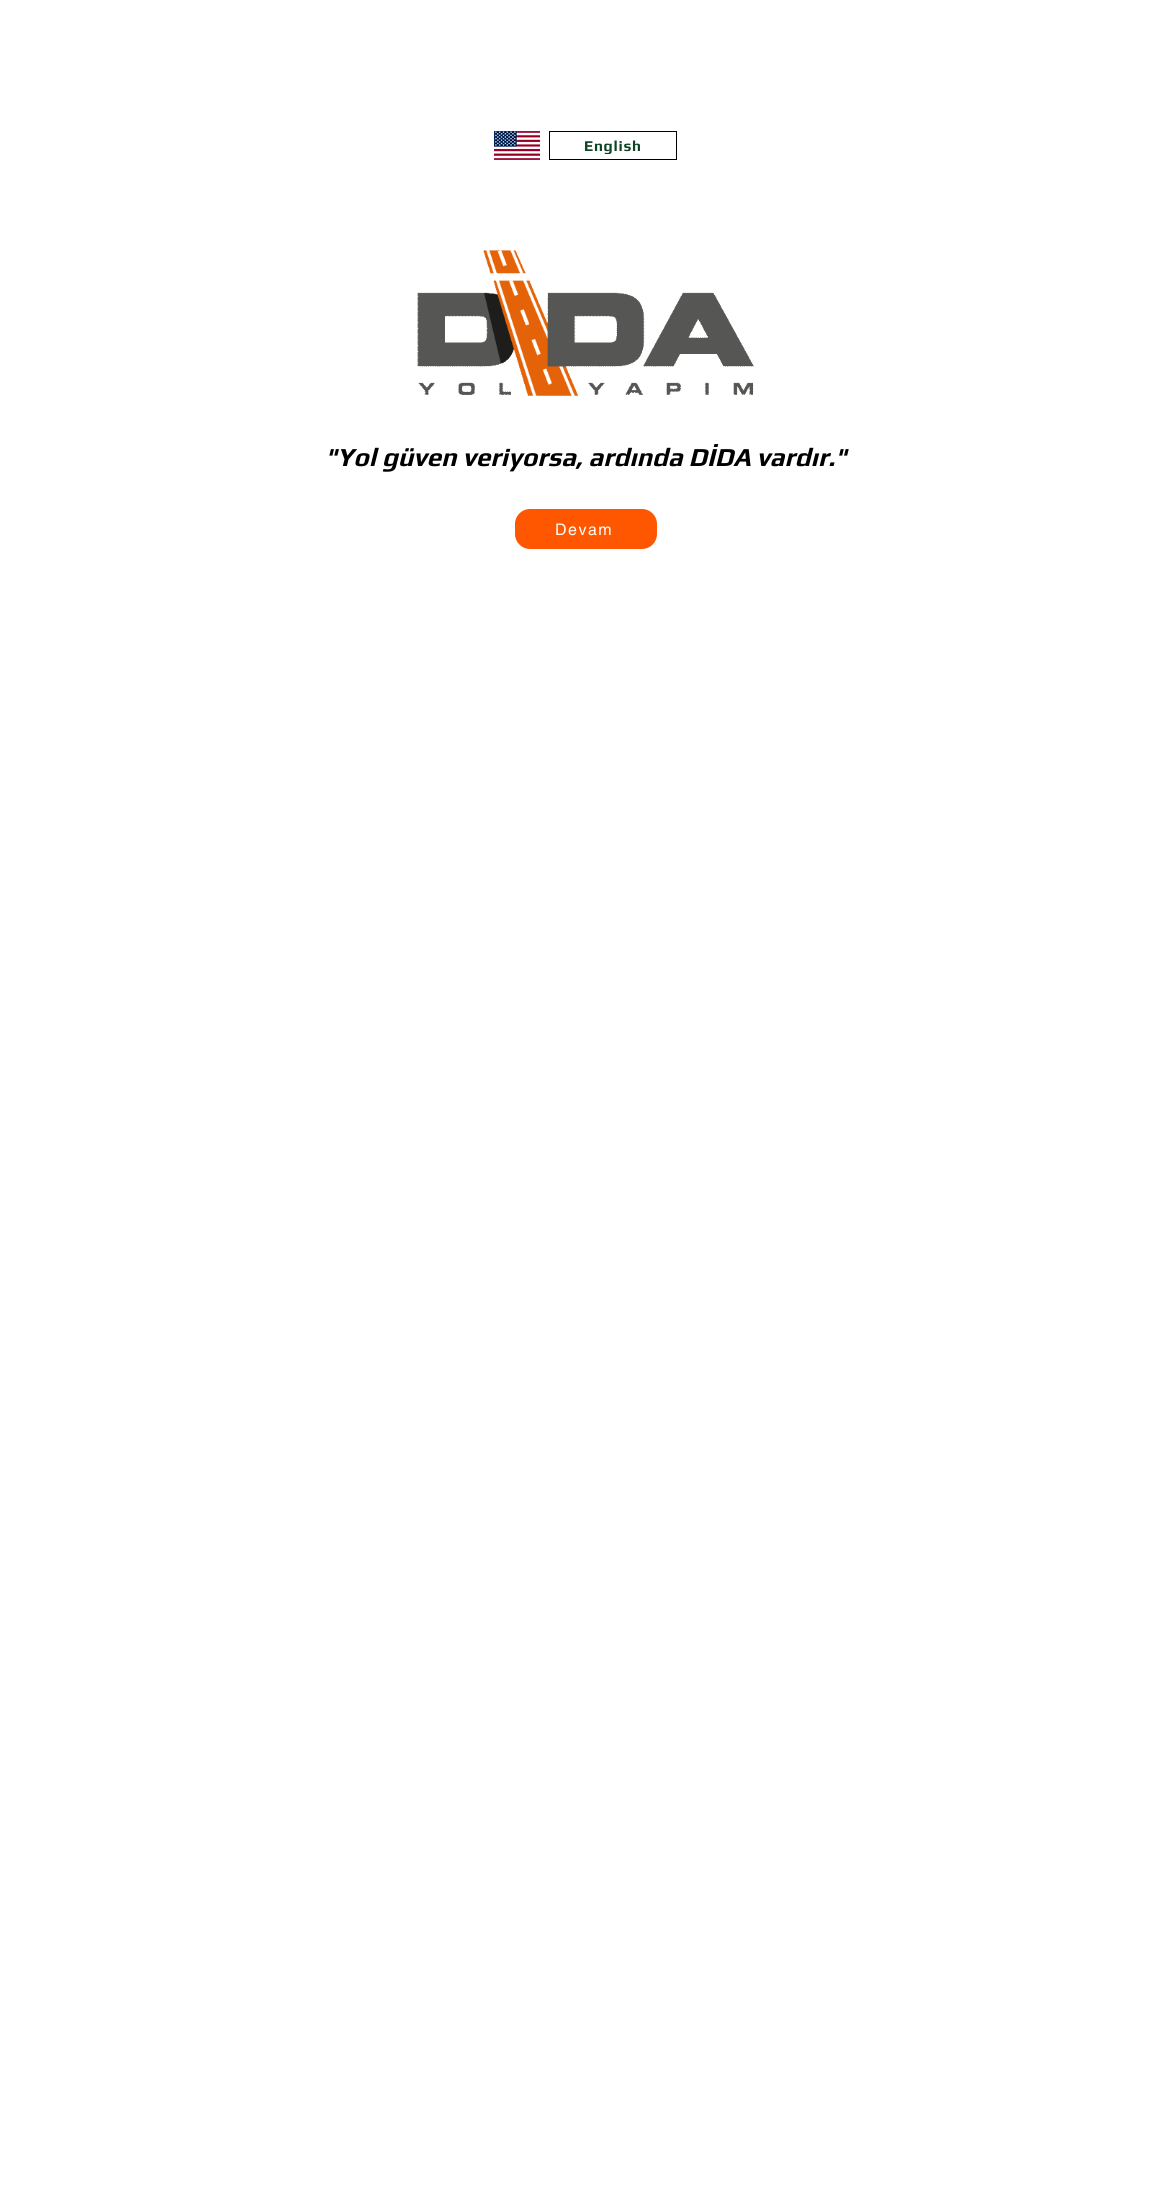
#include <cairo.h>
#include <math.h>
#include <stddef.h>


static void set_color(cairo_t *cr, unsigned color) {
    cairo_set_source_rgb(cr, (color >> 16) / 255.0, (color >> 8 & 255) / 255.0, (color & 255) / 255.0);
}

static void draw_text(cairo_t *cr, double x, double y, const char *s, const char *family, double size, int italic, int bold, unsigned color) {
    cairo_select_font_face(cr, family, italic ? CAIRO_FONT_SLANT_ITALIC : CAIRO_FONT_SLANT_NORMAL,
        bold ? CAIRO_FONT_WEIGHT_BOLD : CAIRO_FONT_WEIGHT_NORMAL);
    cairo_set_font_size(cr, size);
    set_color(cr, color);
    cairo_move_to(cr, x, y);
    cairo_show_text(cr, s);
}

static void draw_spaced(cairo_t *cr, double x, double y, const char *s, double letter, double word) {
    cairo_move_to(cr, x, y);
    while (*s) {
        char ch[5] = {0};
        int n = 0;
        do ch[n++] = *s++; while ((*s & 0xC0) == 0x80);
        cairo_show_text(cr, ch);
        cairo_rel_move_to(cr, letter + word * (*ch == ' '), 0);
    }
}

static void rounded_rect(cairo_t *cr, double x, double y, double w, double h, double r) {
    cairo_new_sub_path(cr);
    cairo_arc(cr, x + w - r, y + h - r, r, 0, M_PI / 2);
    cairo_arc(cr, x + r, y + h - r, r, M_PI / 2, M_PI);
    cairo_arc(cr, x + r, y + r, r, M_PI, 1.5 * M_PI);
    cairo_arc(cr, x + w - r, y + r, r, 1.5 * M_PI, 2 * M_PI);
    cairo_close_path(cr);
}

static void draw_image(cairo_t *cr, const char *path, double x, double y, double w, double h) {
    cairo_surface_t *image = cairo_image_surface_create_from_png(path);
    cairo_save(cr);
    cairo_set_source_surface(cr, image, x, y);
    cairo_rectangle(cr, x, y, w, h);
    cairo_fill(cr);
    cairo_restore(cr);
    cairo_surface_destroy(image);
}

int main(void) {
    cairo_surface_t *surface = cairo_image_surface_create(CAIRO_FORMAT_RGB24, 1172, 2209);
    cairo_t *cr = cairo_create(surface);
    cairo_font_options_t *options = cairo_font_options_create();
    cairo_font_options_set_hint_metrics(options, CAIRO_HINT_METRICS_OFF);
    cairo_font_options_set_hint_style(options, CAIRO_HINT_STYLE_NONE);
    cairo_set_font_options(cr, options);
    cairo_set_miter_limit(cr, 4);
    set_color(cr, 0xFFFFFF);
    cairo_paint(cr);
    draw_image(cr, "assets/img1.png", 494, 131, 46, 29);
    cairo_rectangle(cr, 549.5, 131.5, 127, 28);
    set_color(cr, 0x000000);
    cairo_set_line_width(cr, 1);
    cairo_stroke(cr);
    cairo_save(cr);
    cairo_rectangle(cr, 584, 137, 58, 17);
    cairo_clip(cr);
    cairo_select_font_face(cr, "Play", CAIRO_FONT_SLANT_NORMAL, CAIRO_FONT_WEIGHT_BOLD);
    cairo_set_font_size(cr, 15);
    set_color(cr, 0x0C4426);
    draw_spaced(cr, 584, 151, "English", 0.75, 0);
    cairo_restore(cr);
    draw_image(cr, "assets/img2.png", 417, 250, 337, 146);
    draw_text(cr, 325, 466, "\"Yol güven veriyorsa, ardında DİDA vardır.\"", "Play", 26, 1, 1, 0x000000);
    set_color(cr, 0xFF5700);
    rounded_rect(cr, 515, 509, 142, 40, 15);
    cairo_fill(cr);
    cairo_select_font_face(cr, "helvetica", CAIRO_FONT_SLANT_NORMAL, CAIRO_FONT_WEIGHT_NORMAL);
    cairo_set_font_size(cr, 16);
    set_color(cr, 0xFFFFFF);
    draw_spaced(cr, 555, 535, "Devam", 1.5, 0);
    cairo_surface_write_to_png(surface, "output.png");
    cairo_font_options_destroy(options);
    cairo_destroy(cr);
    cairo_surface_destroy(surface);
    return 0;
}
